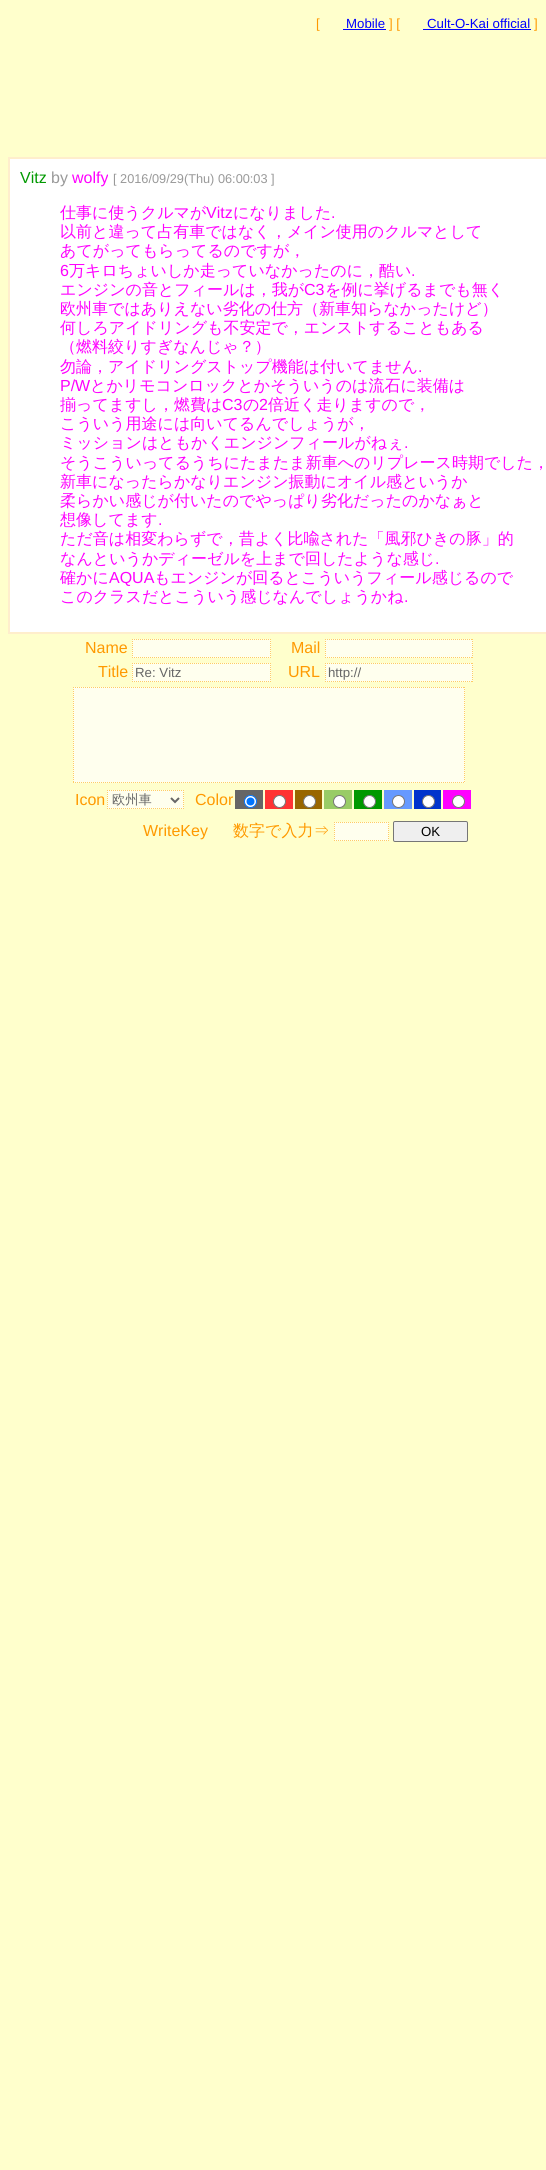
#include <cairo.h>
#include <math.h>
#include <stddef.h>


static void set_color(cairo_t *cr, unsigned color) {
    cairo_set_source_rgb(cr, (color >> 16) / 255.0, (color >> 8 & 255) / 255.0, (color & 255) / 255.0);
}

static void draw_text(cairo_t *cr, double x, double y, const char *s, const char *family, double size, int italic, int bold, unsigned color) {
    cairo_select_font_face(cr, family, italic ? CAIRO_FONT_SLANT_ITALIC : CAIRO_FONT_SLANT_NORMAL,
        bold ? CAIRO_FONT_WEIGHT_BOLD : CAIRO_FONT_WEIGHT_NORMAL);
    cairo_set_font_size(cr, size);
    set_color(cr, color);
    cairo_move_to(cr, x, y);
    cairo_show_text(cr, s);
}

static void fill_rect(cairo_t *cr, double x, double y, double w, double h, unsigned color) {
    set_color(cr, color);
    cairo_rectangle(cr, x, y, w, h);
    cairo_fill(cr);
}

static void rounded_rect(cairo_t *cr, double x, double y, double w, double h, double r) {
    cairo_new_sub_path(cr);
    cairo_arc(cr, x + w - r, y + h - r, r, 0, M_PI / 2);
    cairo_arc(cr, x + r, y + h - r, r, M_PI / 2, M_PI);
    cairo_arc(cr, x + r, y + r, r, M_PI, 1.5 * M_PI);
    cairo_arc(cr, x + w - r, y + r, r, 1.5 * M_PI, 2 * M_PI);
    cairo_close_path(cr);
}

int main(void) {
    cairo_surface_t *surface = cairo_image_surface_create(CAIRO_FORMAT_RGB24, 546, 2170);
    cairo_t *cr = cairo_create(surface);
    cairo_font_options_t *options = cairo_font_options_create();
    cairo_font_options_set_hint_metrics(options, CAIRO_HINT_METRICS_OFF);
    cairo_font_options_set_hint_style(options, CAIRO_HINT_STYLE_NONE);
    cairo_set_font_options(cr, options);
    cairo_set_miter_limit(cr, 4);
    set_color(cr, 0xFFFFCC);
    cairo_paint(cr);
    draw_text(cr, 316, 28, "[", "Liberation Sans", 13.25, 0, 0, 0xFF9900);
    draw_text(cr, 346, 28, "Mobile", "Liberation Sans", 13.25, 0, 0, 0x0000FF);
    fill_rect(cr, 343, 29, 43, 1, 0x0000FF);
    draw_text(cr, 389, 28, "] [", "Liberation Sans", 13.25, 0, 0, 0xFF9900);
    draw_text(cr, 427, 28, "Cult-O-Kai official", "Liberation Sans", 13.25, 0, 0, 0x0000FF);
    fill_rect(cr, 423, 29, 108, 1, 0x0000FF);
    draw_text(cr, 534, 28, "]", "Liberation Sans", 13.25, 0, 0, 0xFF9900);
    set_color(cr, 0xFFFFFF);
    cairo_rectangle(cr, 9, 158, 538, 475);
    cairo_fill_preserve(cr);
    set_color(cr, 0xFFEECC);
    cairo_stroke(cr);
    draw_text(cr, 20, 183, "Vitz", "Liberation Sans", 16, 0, 0, 0x009900);
    draw_text(cr, 51, 183, "by", "Liberation Sans", 16, 0, 0, 0x999999);
    draw_text(cr, 72, 183, "wolfy", "Liberation Sans", 16, 0, 0, 0xFF00FF);
    draw_text(cr, 113, 183, "[ 2016/09/29(Thu) 06:00:03 ]", "Liberation Sans", 12.75, 0, 0, 0x999999);
    draw_text(cr, 60, 218, "仕事に使うクルマが", "WenQuanYi Zen Hei Medium", 16, 0, 0, 0xFF00FF);
    draw_text(cr, 206, 218, "Vitz", "Liberation Sans", 16, 0, 0, 0xFF00FF);
    draw_text(cr, 233, 218, "になりました", "WenQuanYi Zen Hei Medium", 16, 0, 0, 0xFF00FF);
    draw_text(cr, 331, 218, ".", "Liberation Sans", 16, 0, 0, 0xFF00FF);
    draw_text(cr, 60, 237, "以前と違って占有車ではなく，メイン使用のクルマとして", "WenQuanYi Zen Hei Medium", 16, 0, 0, 0xFF00FF);
    draw_text(cr, 60, 256, "あてがってもらってるのですが，", "WenQuanYi Zen Hei Medium", 16, 0, 0, 0xFF00FF);
    draw_text(cr, 60, 276, "6", "Liberation Sans", 16, 0, 0, 0xFF00FF);
    draw_text(cr, 69, 276, "万キロちょいしか走っていなかったのに，酷い", "WenQuanYi Zen Hei Medium", 16, 0, 0, 0xFF00FF);
    draw_text(cr, 411, 276, ".", "Liberation Sans", 16, 0, 0, 0xFF00FF);
    draw_text(cr, 60, 295, "エンジンの音とフィールは，我が", "WenQuanYi Zen Hei Medium", 16, 0, 0, 0xFF00FF);
    draw_text(cr, 304, 295, "C3", "Liberation Sans", 16, 0, 0, 0xFF00FF);
    draw_text(cr, 325, 295, "を例に挙げるまでも無く", "WenQuanYi Zen Hei Medium", 16, 0, 0, 0xFF00FF);
    draw_text(cr, 60, 314, "欧州車ではありえない劣化の仕方（新車知らなかったけど）", "WenQuanYi Zen Hei Medium", 16, 0, 0, 0xFF00FF);
    draw_text(cr, 60, 333, "何しろアイドリングも不安定で，エンストすることもある", "WenQuanYi Zen Hei Medium", 16, 0, 0, 0xFF00FF);
    draw_text(cr, 60, 352, "（燃料絞りすぎなんじゃ？）", "WenQuanYi Zen Hei Medium", 16, 0, 0, 0xFF00FF);
    draw_text(cr, 60, 372, "勿論，アイドリングストップ機能は付いてません", "WenQuanYi Zen Hei Medium", 16, 0, 0, 0xFF00FF);
    draw_text(cr, 418, 372, ".", "Liberation Sans", 16, 0, 0, 0xFF00FF);
    draw_text(cr, 60, 391, "P/W", "Liberation Sans", 16, 0, 0, 0xFF00FF);
    draw_text(cr, 90, 391, "とかリモコンロックとかそういうのは流石に装備は", "WenQuanYi Zen Hei Medium", 16, 0, 0, 0xFF00FF);
    draw_text(cr, 60, 410, "揃ってますし，燃費は", "WenQuanYi Zen Hei Medium", 16, 0, 0, 0xFF00FF);
    draw_text(cr, 222, 410, "C3", "Liberation Sans", 16, 0, 0, 0xFF00FF);
    draw_text(cr, 243, 410, "の", "WenQuanYi Zen Hei Medium", 16, 0, 0, 0xFF00FF);
    draw_text(cr, 259, 410, "2", "Liberation Sans", 16, 0, 0, 0xFF00FF);
    draw_text(cr, 268, 410, "倍近く走りますので，", "WenQuanYi Zen Hei Medium", 16, 0, 0, 0xFF00FF);
    draw_text(cr, 60, 429, "こういう用途には向いてるんでしょうが，", "WenQuanYi Zen Hei Medium", 16, 0, 0, 0xFF00FF);
    draw_text(cr, 60, 448, "ミッションはともかくエンジンフィールがねぇ", "WenQuanYi Zen Hei Medium", 16, 0, 0, 0xFF00FF);
    draw_text(cr, 404, 448, ".", "Liberation Sans", 16, 0, 0, 0xFF00FF);
    draw_text(cr, 60, 468, "そうこういってるうちにたまたま新車へのリプレース時期でした，", "WenQuanYi Zen Hei Medium", 16, 0, 0, 0xFF00FF);
    draw_text(cr, 60, 487, "新車になったらかなりエンジン振動にオイル感というか", "WenQuanYi Zen Hei Medium", 16, 0, 0, 0xFF00FF);
    draw_text(cr, 60, 506, "柔らかい感じが付いたのでやっぱり劣化だったのかなぁと", "WenQuanYi Zen Hei Medium", 16, 0, 0, 0xFF00FF);
    draw_text(cr, 60, 525, "想像してます", "WenQuanYi Zen Hei Medium", 16, 0, 0, 0xFF00FF);
    draw_text(cr, 158, 525, ".", "Liberation Sans", 16, 0, 0, 0xFF00FF);
    draw_text(cr, 60, 544, "ただ音は相変わらずで，昔よく比喩された「風邪ひきの豚」的", "WenQuanYi Zen Hei Medium", 16, 0, 0, 0xFF00FF);
    draw_text(cr, 60, 564, "なんというかディーゼルを上まで回したような感じ", "WenQuanYi Zen Hei Medium", 16, 0, 0, 0xFF00FF);
    draw_text(cr, 435, 564, ".", "Liberation Sans", 16, 0, 0, 0xFF00FF);
    draw_text(cr, 60, 583, "確かに", "WenQuanYi Zen Hei Medium", 16, 0, 0, 0xFF00FF);
    draw_text(cr, 109, 583, "AQUA", "Liberation Sans", 16, 0, 0, 0xFF00FF);
    draw_text(cr, 154, 583, "もエンジンが回るとこういうフィール感じるので", "WenQuanYi Zen Hei Medium", 16, 0, 0, 0xFF00FF);
    draw_text(cr, 60, 602, "このクラスだとこういう感じなんでしょうかね", "WenQuanYi Zen Hei Medium", 16, 0, 0, 0xFF00FF);
    draw_text(cr, 404, 602, ".", "Liberation Sans", 16, 0, 0, 0xFF00FF);
    draw_text(cr, 85, 653, "Name", "Liberation Sans", 16, 0, 0, 0xFF9900);
    fill_rect(cr, 132, 639, 139, 19, 0xFFFFEE);
    cairo_new_path(cr);
    cairo_move_to(cr, 132, 639.5);
    cairo_line_to(cr, 271, 639.5);
    set_color(cr, 0xFFCC66);
    cairo_set_line_width(cr, 1);
    cairo_set_dash(cr, (double[]){1, 1}, 2, 0);
    cairo_stroke(cr);
    cairo_new_path(cr);
    cairo_move_to(cr, 270.5, 639);
    cairo_line_to(cr, 270.5, 658);
    cairo_stroke(cr);
    cairo_new_path(cr);
    cairo_move_to(cr, 132, 657.5);
    cairo_line_to(cr, 271, 657.5);
    cairo_stroke(cr);
    cairo_new_path(cr);
    cairo_move_to(cr, 132.5, 639);
    cairo_line_to(cr, 132.5, 658);
    cairo_stroke(cr);
    draw_text(cr, 291, 653, "Mail", "Liberation Sans", 16, 0, 0, 0xFF9900);
    fill_rect(cr, 325, 639, 148, 19, 0xFFFFEE);
    cairo_new_path(cr);
    cairo_move_to(cr, 325, 639.5);
    cairo_line_to(cr, 473, 639.5);
    set_color(cr, 0xFFCC66);
    cairo_stroke(cr);
    cairo_new_path(cr);
    cairo_move_to(cr, 472.5, 639);
    cairo_line_to(cr, 472.5, 658);
    cairo_stroke(cr);
    cairo_new_path(cr);
    cairo_move_to(cr, 325, 657.5);
    cairo_line_to(cr, 473, 657.5);
    cairo_stroke(cr);
    cairo_new_path(cr);
    cairo_move_to(cr, 325.5, 639);
    cairo_line_to(cr, 325.5, 658);
    cairo_stroke(cr);
    draw_text(cr, 98, 677, "Title", "Liberation Sans", 16, 0, 0, 0xFF9900);
    fill_rect(cr, 132, 663, 139, 19, 0xFFFFEE);
    cairo_new_path(cr);
    cairo_move_to(cr, 132, 663.5);
    cairo_line_to(cr, 271, 663.5);
    set_color(cr, 0xFFCC66);
    cairo_stroke(cr);
    cairo_new_path(cr);
    cairo_move_to(cr, 270.5, 663);
    cairo_line_to(cr, 270.5, 682);
    cairo_stroke(cr);
    cairo_new_path(cr);
    cairo_move_to(cr, 132, 681.5);
    cairo_line_to(cr, 271, 681.5);
    cairo_stroke(cr);
    cairo_new_path(cr);
    cairo_move_to(cr, 132.5, 663);
    cairo_line_to(cr, 132.5, 682);
    cairo_stroke(cr);
    draw_text(cr, 135, 677, "Re: Vitz", "Liberation Sans", 13.25, 0, 0, 0x666666);
    draw_text(cr, 288, 677, "URL", "Liberation Sans", 16, 0, 0, 0xFF9900);
    fill_rect(cr, 325, 663, 148, 19, 0xFFFFEE);
    cairo_new_path(cr);
    cairo_move_to(cr, 325, 663.5);
    cairo_line_to(cr, 473, 663.5);
    set_color(cr, 0xFFCC66);
    cairo_stroke(cr);
    cairo_new_path(cr);
    cairo_move_to(cr, 472.5, 663);
    cairo_line_to(cr, 472.5, 682);
    cairo_stroke(cr);
    cairo_new_path(cr);
    cairo_move_to(cr, 325, 681.5);
    cairo_line_to(cr, 473, 681.5);
    cairo_stroke(cr);
    cairo_new_path(cr);
    cairo_move_to(cr, 325.5, 663);
    cairo_line_to(cr, 325.5, 682);
    cairo_stroke(cr);
    draw_text(cr, 328, 677, "http://", "Liberation Sans", 13.25, 0, 0, 0x666666);
    fill_rect(cr, 73, 687, 392, 96, 0xFFFFEE);
    cairo_new_path(cr);
    cairo_move_to(cr, 73, 687.5);
    cairo_line_to(cr, 465, 687.5);
    set_color(cr, 0xFFCC66);
    cairo_stroke(cr);
    cairo_new_path(cr);
    cairo_move_to(cr, 464.5, 687);
    cairo_line_to(cr, 464.5, 783);
    cairo_stroke(cr);
    cairo_new_path(cr);
    cairo_move_to(cr, 73, 782.5);
    cairo_line_to(cr, 465, 782.5);
    cairo_stroke(cr);
    cairo_new_path(cr);
    cairo_move_to(cr, 73.5, 687);
    cairo_line_to(cr, 73.5, 783);
    cairo_stroke(cr);
    draw_text(cr, 75, 805, "Icon", "Liberation Sans", 16, 0, 0, 0xFF9900);
    fill_rect(cr, 107, 790, 77, 19, 0xFFFFEE);
    cairo_new_path(cr);
    cairo_move_to(cr, 107, 790.5);
    cairo_line_to(cr, 184, 790.5);
    set_color(cr, 0xFFCC66);
    cairo_stroke(cr);
    cairo_new_path(cr);
    cairo_move_to(cr, 183.5, 790);
    cairo_line_to(cr, 183.5, 809);
    cairo_stroke(cr);
    cairo_new_path(cr);
    cairo_move_to(cr, 107, 808.5);
    cairo_line_to(cr, 184, 808.5);
    cairo_stroke(cr);
    cairo_new_path(cr);
    cairo_move_to(cr, 107.5, 790);
    cairo_line_to(cr, 107.5, 809);
    cairo_stroke(cr);
    cairo_new_path(cr);
    cairo_move_to(cr, 171, 798);
    cairo_line_to(cr, 175, 802);
    cairo_line_to(cr, 179, 798);
    set_color(cr, 0x666666);
    cairo_set_line_width(cr, 2);
    cairo_set_dash(cr, NULL, 0, 0);
    cairo_stroke(cr);
    draw_text(cr, 112, 804, "欧州車", "WenQuanYi Zen Hei Medium", 13.25, 0, 0, 0x666666);
    draw_text(cr, 195, 805, "Color", "Liberation Sans", 16, 0, 0, 0xFF9900);
    fill_rect(cr, 235, 790, 28, 19, 0x666666);
    set_color(cr, 0xFFFFFF);
    cairo_new_path(cr);
    cairo_arc(cr, 250.5, 801.5, 6, 0, 2 * M_PI);
    cairo_fill_preserve(cr);
    set_color(cr, 0x0075FF);
    cairo_set_line_width(cr, 1);
    cairo_stroke(cr);
    cairo_arc(cr, 250.5, 801.5, 4, 0, 2 * M_PI);
    cairo_fill(cr);
    fill_rect(cr, 265, 790, 28, 19, 0xFF3333);
    set_color(cr, 0xFFFFFF);
    cairo_arc(cr, 279.5, 801.5, 6, 0, 2 * M_PI);
    cairo_fill_preserve(cr);
    set_color(cr, 0x767676);
    cairo_stroke(cr);
    fill_rect(cr, 295, 790, 27, 19, 0x996600);
    set_color(cr, 0xFFFFFF);
    cairo_arc(cr, 309.5, 801.5, 6, 0, 2 * M_PI);
    cairo_fill_preserve(cr);
    set_color(cr, 0x767676);
    cairo_stroke(cr);
    fill_rect(cr, 324, 790, 28, 19, 0x99CC66);
    set_color(cr, 0xFFFFFF);
    cairo_arc(cr, 339.5, 801.5, 6, 0, 2 * M_PI);
    cairo_fill_preserve(cr);
    set_color(cr, 0x767676);
    cairo_stroke(cr);
    fill_rect(cr, 354, 790, 28, 19, 0x009900);
    set_color(cr, 0xFFFFFF);
    cairo_arc(cr, 369.5, 801.5, 6, 0, 2 * M_PI);
    cairo_fill_preserve(cr);
    set_color(cr, 0x767676);
    cairo_stroke(cr);
    fill_rect(cr, 384, 790, 28, 19, 0x6699FF);
    set_color(cr, 0xFFFFFF);
    cairo_arc(cr, 398.5, 801.5, 6, 0, 2 * M_PI);
    cairo_fill_preserve(cr);
    set_color(cr, 0x767676);
    cairo_stroke(cr);
    fill_rect(cr, 414, 790, 27, 19, 0x0033CC);
    set_color(cr, 0xFFFFFF);
    cairo_arc(cr, 428.5, 801.5, 6, 0, 2 * M_PI);
    cairo_fill_preserve(cr);
    set_color(cr, 0x767676);
    cairo_stroke(cr);
    fill_rect(cr, 443, 790, 28, 19, 0xFF00FF);
    set_color(cr, 0xFFFFFF);
    cairo_arc(cr, 458.5, 801.5, 6, 0, 2 * M_PI);
    cairo_fill_preserve(cr);
    set_color(cr, 0x767676);
    cairo_stroke(cr);
    draw_text(cr, 143, 836, "WriteKey", "Liberation Sans", 16, 0, 0, 0xFF9900);
    draw_text(cr, 233, 836, "数字で入力⇒", "WenQuanYi Zen Hei Medium", 16, 0, 0, 0xFF9900);
    fill_rect(cr, 334, 822, 55, 19, 0xFFFFEE);
    cairo_new_path(cr);
    cairo_move_to(cr, 334, 822.5);
    cairo_line_to(cr, 389, 822.5);
    cairo_move_to(cr, 388.5, 822);
    cairo_line_to(cr, 388.5, 841);
    cairo_move_to(cr, 334, 840.5);
    cairo_line_to(cr, 389, 840.5);
    cairo_move_to(cr, 334.5, 822);
    cairo_line_to(cr, 334.5, 841);
    set_color(cr, 0xFFCC66);
    cairo_set_dash(cr, (double[]){1, 1}, 2, 0);
    cairo_stroke(cr);
    set_color(cr, 0xEFEFEF);
    rounded_rect(cr, 393.5, 821.5, 74, 20, 1.5);
    cairo_fill_preserve(cr);
    set_color(cr, 0x767676);
    cairo_set_dash(cr, NULL, 0, 0);
    cairo_stroke(cr);
    draw_text(cr, 421, 836, "OK", "Liberation Sans", 13.25, 0, 0, 0x000000);
    cairo_surface_write_to_png(surface, "output.png");
    cairo_font_options_destroy(options);
    cairo_destroy(cr);
    cairo_surface_destroy(surface);
    return 0;
}
